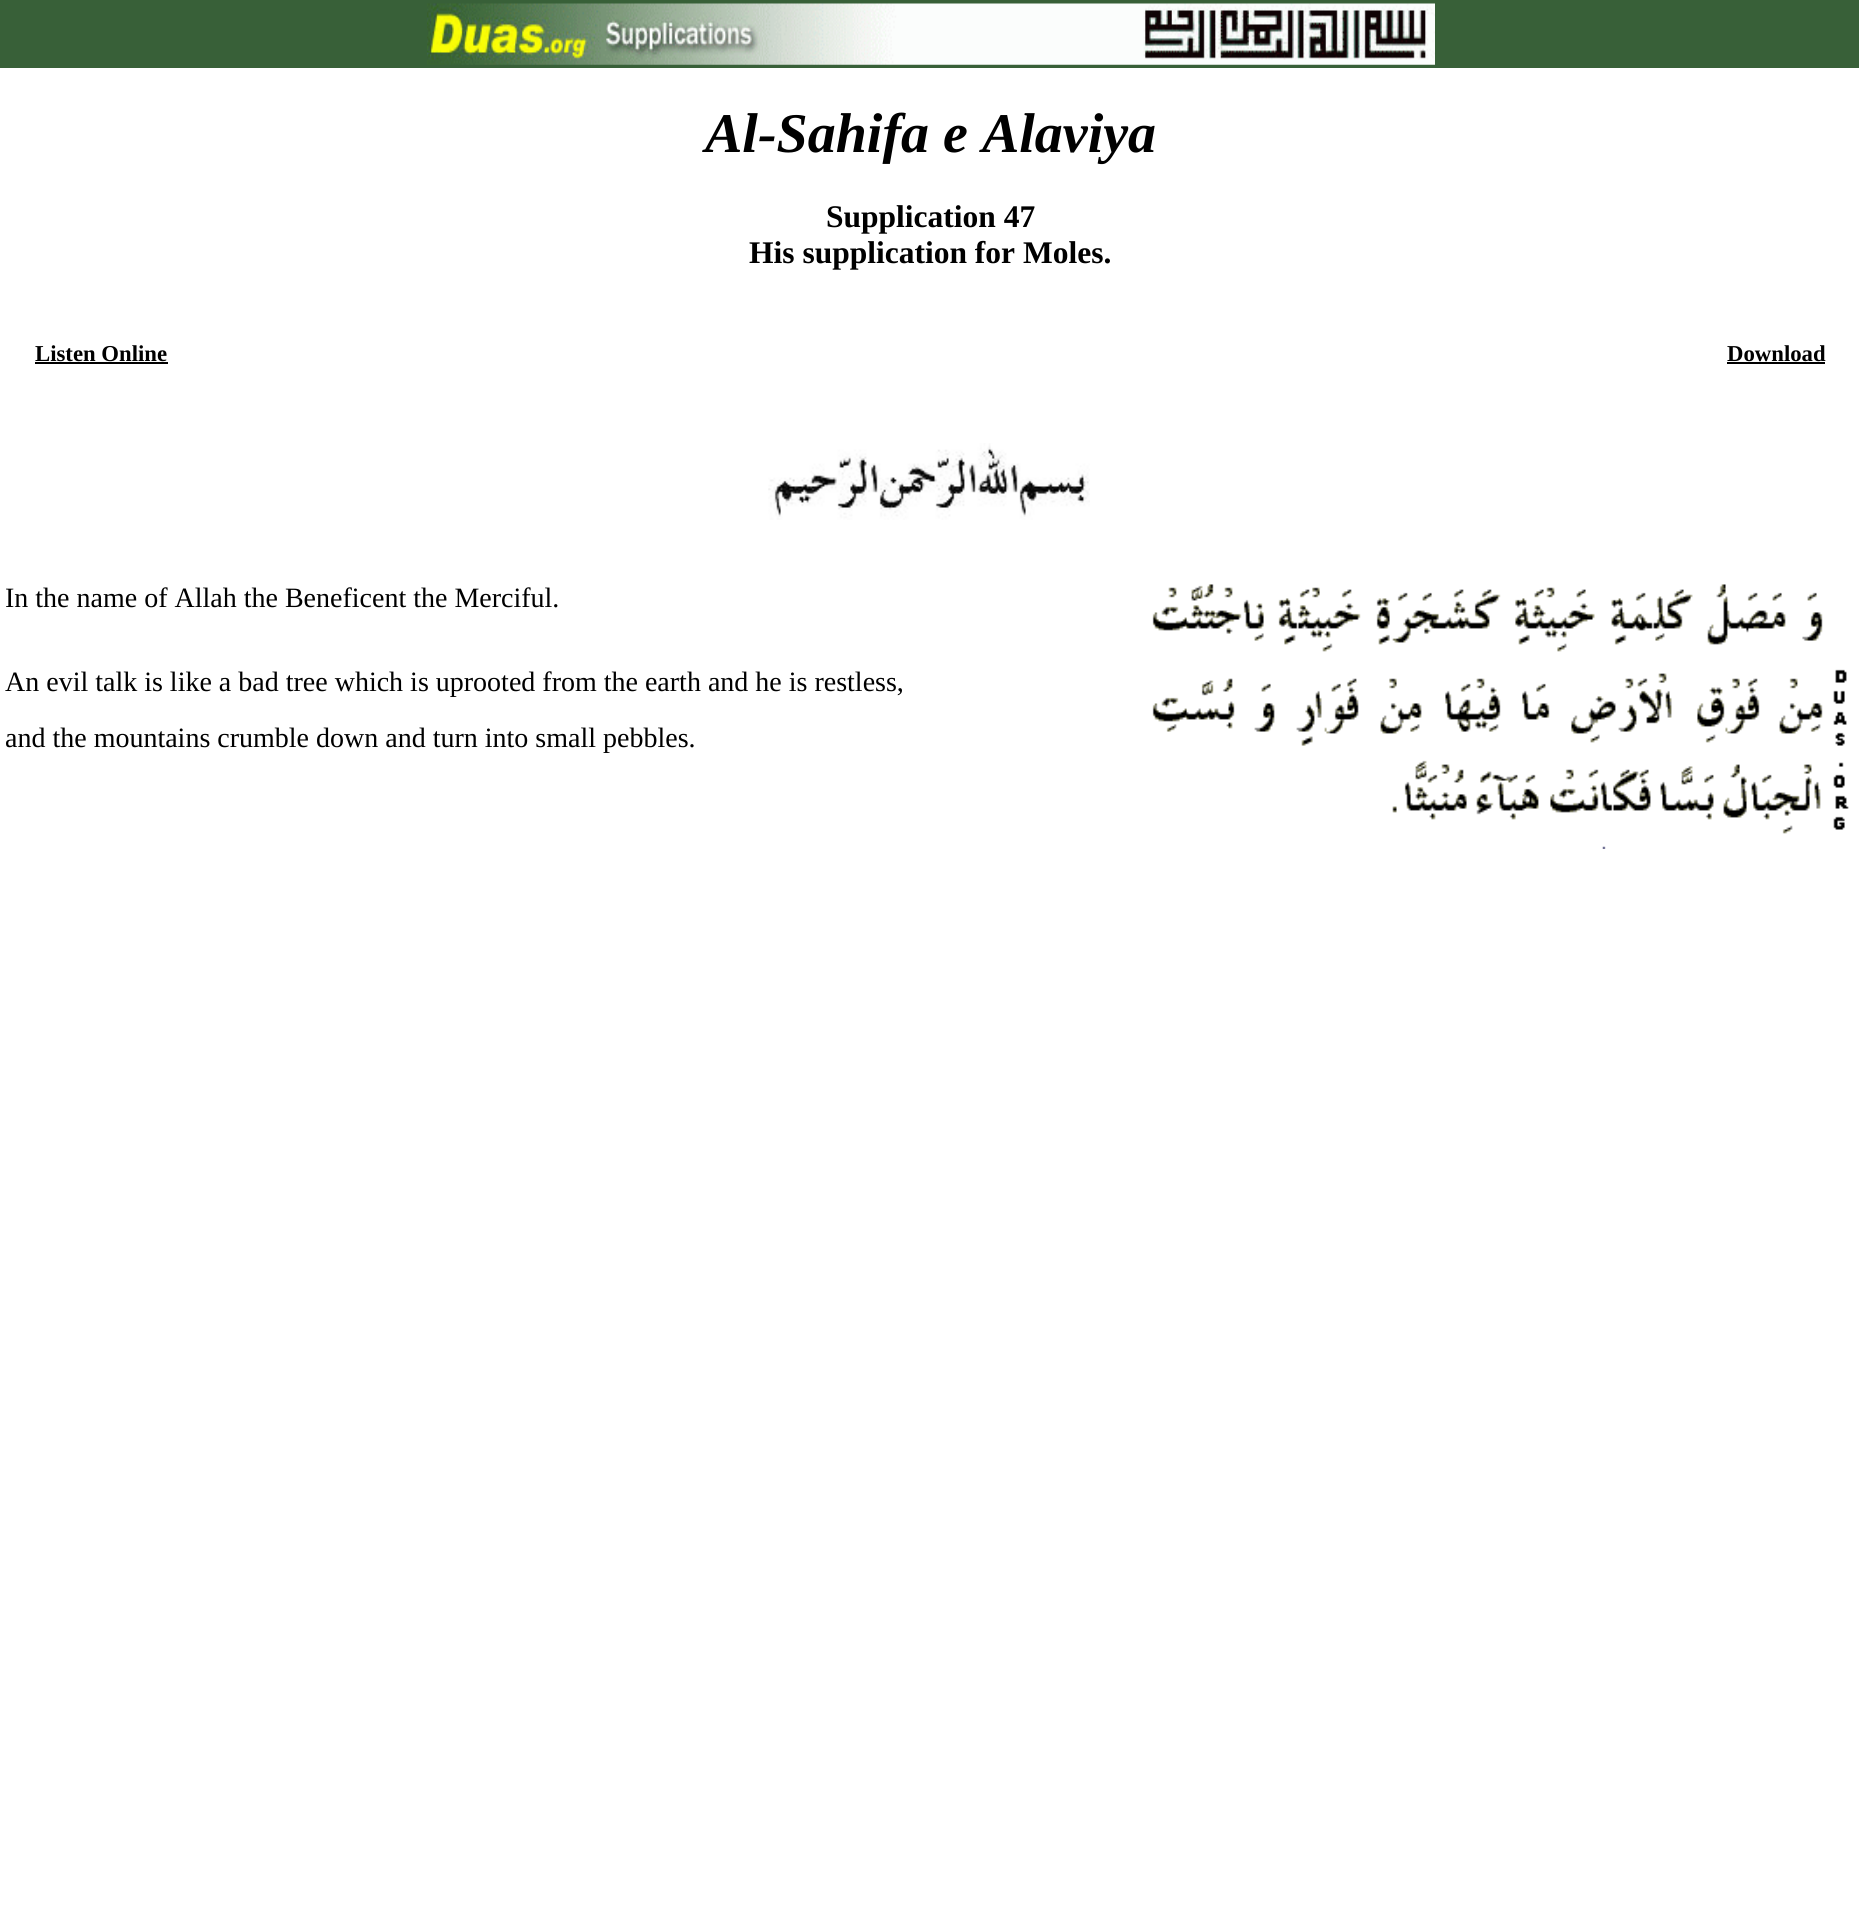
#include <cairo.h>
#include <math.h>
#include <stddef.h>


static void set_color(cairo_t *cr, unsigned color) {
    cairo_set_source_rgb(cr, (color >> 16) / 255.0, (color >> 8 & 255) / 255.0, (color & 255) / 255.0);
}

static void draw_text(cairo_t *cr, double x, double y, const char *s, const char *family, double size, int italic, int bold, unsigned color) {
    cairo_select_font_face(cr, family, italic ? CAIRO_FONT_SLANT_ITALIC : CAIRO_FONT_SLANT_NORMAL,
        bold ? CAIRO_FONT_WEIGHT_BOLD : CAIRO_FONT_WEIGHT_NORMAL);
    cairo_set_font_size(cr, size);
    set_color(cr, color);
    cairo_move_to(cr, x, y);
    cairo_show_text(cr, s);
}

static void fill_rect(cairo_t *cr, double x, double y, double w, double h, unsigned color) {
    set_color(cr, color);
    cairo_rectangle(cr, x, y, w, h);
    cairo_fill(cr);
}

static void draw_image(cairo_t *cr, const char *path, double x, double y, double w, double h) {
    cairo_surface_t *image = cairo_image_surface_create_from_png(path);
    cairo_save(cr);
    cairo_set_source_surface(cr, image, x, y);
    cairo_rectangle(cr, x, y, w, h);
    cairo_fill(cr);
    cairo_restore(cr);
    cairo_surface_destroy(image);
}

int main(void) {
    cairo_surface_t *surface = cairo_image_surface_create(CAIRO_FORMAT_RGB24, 1859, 1909);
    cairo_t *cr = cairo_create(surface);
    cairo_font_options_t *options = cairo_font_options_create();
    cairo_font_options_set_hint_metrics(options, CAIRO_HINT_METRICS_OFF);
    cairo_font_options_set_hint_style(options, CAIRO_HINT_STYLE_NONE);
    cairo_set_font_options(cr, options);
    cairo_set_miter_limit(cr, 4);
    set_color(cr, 0xFFFFFF);
    cairo_paint(cr);
    fill_rect(cr, 0, 0, 1859, 68, 0x386038);
    draw_image(cr, "assets/img1.png", 427, 3, 1008, 62);
    draw_text(cr, 705, 152, "Al-Sahifa e Alaviya", "Liberation Serif", 56, 1, 1, 0x000000);
    draw_text(cr, 826, 227, "Supplication 47", "Liberation Serif", 31.5, 0, 1, 0x000000);
    draw_text(cr, 749, 263, "His supplication for Moles.", "Liberation Serif", 31.5, 0, 1, 0x000000);
    draw_text(cr, 35, 361, "Listen Online", "Liberation Serif", 22.75, 0, 1, 0x000000);
    fill_rect(cr, 35, 362, 133, 2, 0x000000);
    draw_text(cr, 1727, 361, "Download", "Liberation Serif", 22.75, 0, 1, 0x000000);
    fill_rect(cr, 1727, 362, 98, 2, 0x000000);
    draw_image(cr, "assets/img2.png", 768, 443, 322, 77);
    draw_text(cr, 5, 607, "In the name of Allah the Beneficent the Merciful.", "Liberation Serif", 28, 0, 0, 0x000000);
    draw_text(cr, 5, 691, "An evil talk is like a bad tree which is uprooted from the earth and he is restless,", "Liberation Serif", 28, 0, 0, 0x000000);
    draw_text(cr, 5, 747, "and the mountains crumble down and turn into small pebbles.", "Liberation Serif", 28, 0, 0, 0x000000);
    draw_image(cr, "assets/img3.png", 1152, 584, 697, 265);
    cairo_surface_write_to_png(surface, "output.png");
    cairo_font_options_destroy(options);
    cairo_destroy(cr);
    cairo_surface_destroy(surface);
    return 0;
}
